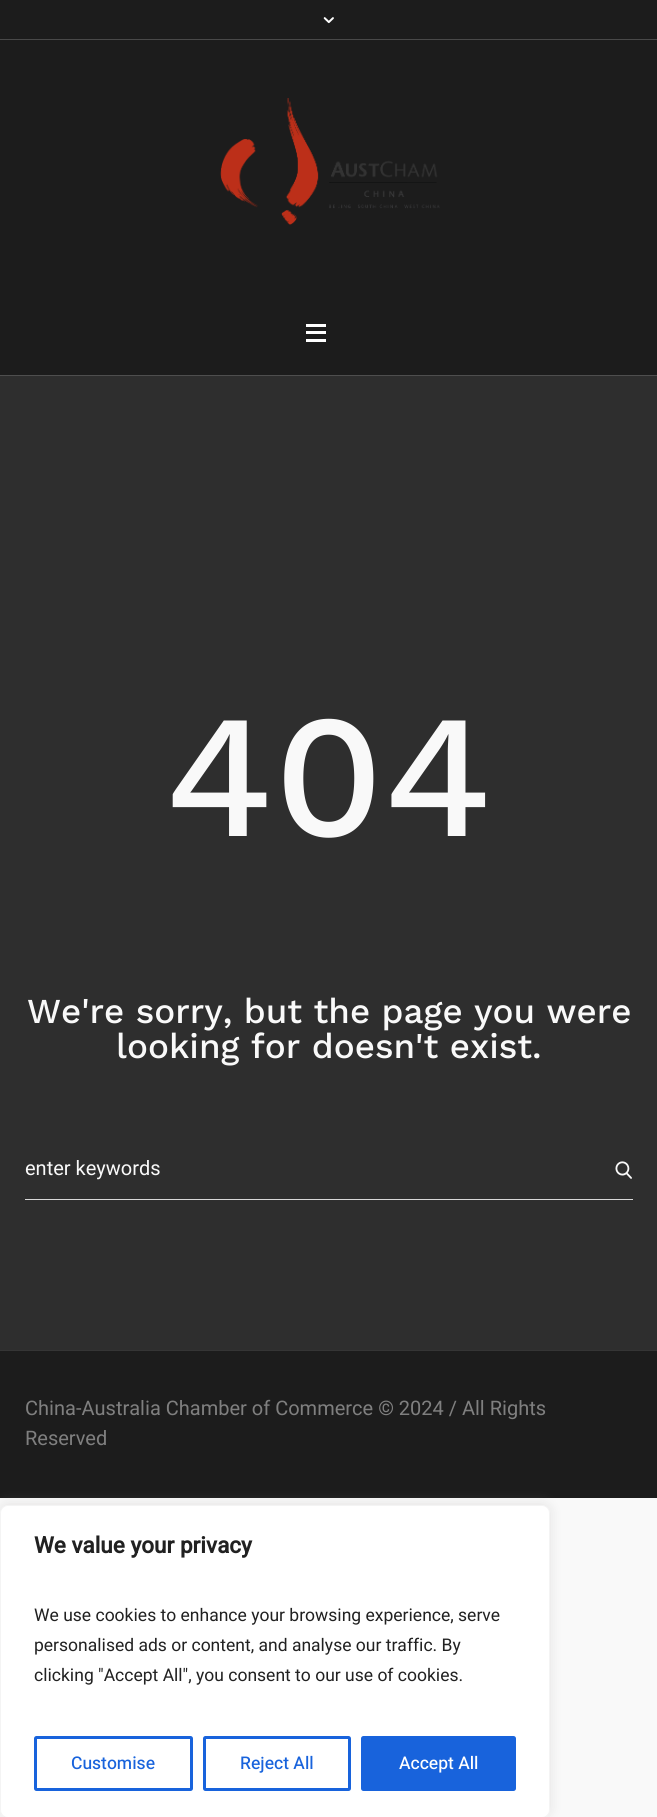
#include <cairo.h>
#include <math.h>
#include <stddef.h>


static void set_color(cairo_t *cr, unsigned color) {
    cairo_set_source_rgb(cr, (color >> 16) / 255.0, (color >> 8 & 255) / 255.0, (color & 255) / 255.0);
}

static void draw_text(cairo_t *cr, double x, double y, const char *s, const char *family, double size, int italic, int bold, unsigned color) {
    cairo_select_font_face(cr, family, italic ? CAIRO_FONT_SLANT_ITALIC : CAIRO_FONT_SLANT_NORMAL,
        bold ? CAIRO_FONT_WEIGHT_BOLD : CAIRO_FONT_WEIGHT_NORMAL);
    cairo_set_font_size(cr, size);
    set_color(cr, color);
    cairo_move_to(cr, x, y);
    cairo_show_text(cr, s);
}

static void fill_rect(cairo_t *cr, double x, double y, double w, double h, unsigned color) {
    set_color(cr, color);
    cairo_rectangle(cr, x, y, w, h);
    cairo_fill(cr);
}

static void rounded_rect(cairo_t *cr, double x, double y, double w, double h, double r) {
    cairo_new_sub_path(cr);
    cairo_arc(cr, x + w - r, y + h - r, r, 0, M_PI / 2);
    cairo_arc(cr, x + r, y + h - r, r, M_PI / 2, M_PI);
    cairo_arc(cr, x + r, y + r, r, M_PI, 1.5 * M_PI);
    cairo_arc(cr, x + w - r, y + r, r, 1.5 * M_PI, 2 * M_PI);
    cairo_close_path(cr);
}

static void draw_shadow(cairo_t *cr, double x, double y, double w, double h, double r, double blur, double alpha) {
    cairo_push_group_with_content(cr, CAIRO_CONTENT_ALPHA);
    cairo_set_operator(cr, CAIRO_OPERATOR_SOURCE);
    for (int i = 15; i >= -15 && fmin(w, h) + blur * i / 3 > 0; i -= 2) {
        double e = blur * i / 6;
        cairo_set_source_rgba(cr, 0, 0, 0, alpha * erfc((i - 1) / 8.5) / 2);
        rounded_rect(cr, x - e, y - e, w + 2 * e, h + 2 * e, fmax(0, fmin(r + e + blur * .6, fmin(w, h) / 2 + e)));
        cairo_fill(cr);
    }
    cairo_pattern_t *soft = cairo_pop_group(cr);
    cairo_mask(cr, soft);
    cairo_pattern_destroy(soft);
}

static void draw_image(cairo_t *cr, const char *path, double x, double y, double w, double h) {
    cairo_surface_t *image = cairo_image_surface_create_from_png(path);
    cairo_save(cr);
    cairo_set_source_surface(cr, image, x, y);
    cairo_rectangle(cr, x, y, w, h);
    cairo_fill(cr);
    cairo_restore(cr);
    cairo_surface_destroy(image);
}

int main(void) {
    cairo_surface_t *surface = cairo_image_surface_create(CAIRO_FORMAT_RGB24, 657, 1817);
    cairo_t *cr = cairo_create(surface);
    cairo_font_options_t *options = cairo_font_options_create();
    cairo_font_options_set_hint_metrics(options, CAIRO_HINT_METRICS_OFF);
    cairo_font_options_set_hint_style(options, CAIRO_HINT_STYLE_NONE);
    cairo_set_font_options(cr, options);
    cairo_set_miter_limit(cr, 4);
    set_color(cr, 0xF9F9F9);
    cairo_paint(cr);
    fill_rect(cr, 0, 0, 657, 375, 0x1C1C1C);
    fill_rect(cr, 0, 39, 657, 1, 0x494949);
    draw_image(cr, "assets/img1.png", 323, 17, 11, 7);
    draw_image(cr, "assets/img2.png", 220, 98, 220, 127);
    fill_rect(cr, 306, 331, 20, 3, 0xFFFFFF);
    fill_rect(cr, 306, 324, 20, 3, 0xFFFFFF);
    fill_rect(cr, 306, 339, 20, 3, 0xFFFFFF);
    fill_rect(cr, 0, 375, 657, 1, 0x4E4E4E);
    fill_rect(cr, 0, 376, 657, 974, 0x2E2E2E);
    draw_text(cr, 165, 836, "404", "Work Sans Medium", 175, 0, 0, 0xF9F9F9);
    draw_text(cr, 27, 1023, "We're sorry, but the page you were", "Work Sans Medium", 35, 0, 0, 0xF9F9F9);
    draw_text(cr, 116, 1058, "looking for doesn't exist.", "Work Sans Medium", 35, 0, 0, 0xF9F9F9);
    fill_rect(cr, 25, 1199, 608, 1, 0xD8D8D8);
    draw_text(cr, 25, 1175, "enter keywords", "Heebo", 20, 0, 0, 0xF9F9F9);
    draw_image(cr, "assets/img3.png", 615, 1161, 17, 18);
    fill_rect(cr, 0, 1351, 657, 147, 0x1C1C1C);
    fill_rect(cr, 0, 1350, 657, 1, 0x353535);
    draw_text(cr, 25, 1415, "China-Australia Chamber of Commerce © 2024 / All Rights", "Heebo", 20, 0, 0, 0x7F7F7F);
    draw_text(cr, 25, 1445, "Reserved", "Heebo", 20, 0, 0, 0x7F7F7F);
    set_color(cr, 0xACABAB);
    draw_shadow(cr, 0, 1504, 550, 312, 8, 6, 0.3);
    set_color(cr, 0xFFFFFF);
    rounded_rect(cr, 0.5, 1505.5, 549, 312, 7.5);
    cairo_fill_preserve(cr);
    set_color(cr, 0xF4F4F4);
    cairo_set_line_width(cr, 1);
    cairo_stroke(cr);
    draw_text(cr, 34, 1553, "We value your privacy", "Heebo", 22.5, 0, 1, 0x212121);
    draw_text(cr, 34, 1621, "We use cookies to enhance your browsing experience, serve", "Heebo", 17.5, 0, 0, 0x212121);
    draw_text(cr, 34, 1651, "personalised ads or content, and analyse our traffic. By", "Heebo", 17.5, 0, 0, 0x212121);
    draw_text(cr, 34, 1681, "clicking \"Accept All\", you consent to our use of cookies.", "Heebo", 17.5, 0, 0, 0x212121);
    rounded_rect(cr, 35.5, 1737.5, 156, 52, 1);
    set_color(cr, 0x1863DC);
    cairo_set_line_width(cr, 3);
    cairo_stroke(cr);
    draw_text(cr, 71, 1769, "Customise", "Heebo Medium", 17.5, 0, 0, 0x1863DC);
    rounded_rect(cr, 204.5, 1737.5, 145, 52, 1);
    cairo_stroke(cr);
    draw_text(cr, 240, 1769, "Reject All", "Heebo Medium", 17.5, 0, 0, 0x1863DC);
    rounded_rect(cr, 362.5, 1737.5, 152, 52, 1);
    cairo_fill_preserve(cr);
    cairo_stroke(cr);
    draw_text(cr, 399, 1769, "Accept All", "Heebo Medium", 17.5, 0, 0, 0xFFFFFF);
    cairo_surface_write_to_png(surface, "output.png");
    cairo_font_options_destroy(options);
    cairo_destroy(cr);
    cairo_surface_destroy(surface);
    return 0;
}
